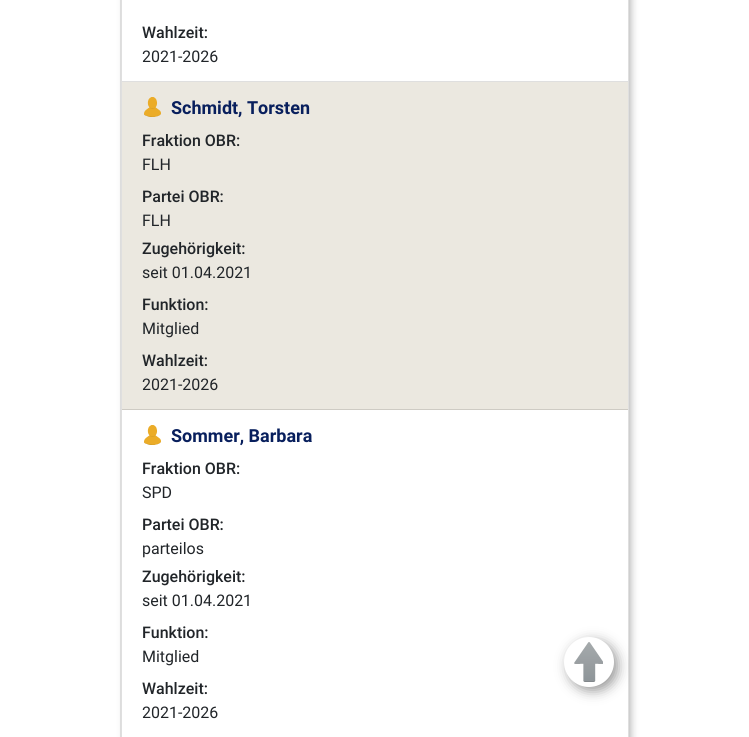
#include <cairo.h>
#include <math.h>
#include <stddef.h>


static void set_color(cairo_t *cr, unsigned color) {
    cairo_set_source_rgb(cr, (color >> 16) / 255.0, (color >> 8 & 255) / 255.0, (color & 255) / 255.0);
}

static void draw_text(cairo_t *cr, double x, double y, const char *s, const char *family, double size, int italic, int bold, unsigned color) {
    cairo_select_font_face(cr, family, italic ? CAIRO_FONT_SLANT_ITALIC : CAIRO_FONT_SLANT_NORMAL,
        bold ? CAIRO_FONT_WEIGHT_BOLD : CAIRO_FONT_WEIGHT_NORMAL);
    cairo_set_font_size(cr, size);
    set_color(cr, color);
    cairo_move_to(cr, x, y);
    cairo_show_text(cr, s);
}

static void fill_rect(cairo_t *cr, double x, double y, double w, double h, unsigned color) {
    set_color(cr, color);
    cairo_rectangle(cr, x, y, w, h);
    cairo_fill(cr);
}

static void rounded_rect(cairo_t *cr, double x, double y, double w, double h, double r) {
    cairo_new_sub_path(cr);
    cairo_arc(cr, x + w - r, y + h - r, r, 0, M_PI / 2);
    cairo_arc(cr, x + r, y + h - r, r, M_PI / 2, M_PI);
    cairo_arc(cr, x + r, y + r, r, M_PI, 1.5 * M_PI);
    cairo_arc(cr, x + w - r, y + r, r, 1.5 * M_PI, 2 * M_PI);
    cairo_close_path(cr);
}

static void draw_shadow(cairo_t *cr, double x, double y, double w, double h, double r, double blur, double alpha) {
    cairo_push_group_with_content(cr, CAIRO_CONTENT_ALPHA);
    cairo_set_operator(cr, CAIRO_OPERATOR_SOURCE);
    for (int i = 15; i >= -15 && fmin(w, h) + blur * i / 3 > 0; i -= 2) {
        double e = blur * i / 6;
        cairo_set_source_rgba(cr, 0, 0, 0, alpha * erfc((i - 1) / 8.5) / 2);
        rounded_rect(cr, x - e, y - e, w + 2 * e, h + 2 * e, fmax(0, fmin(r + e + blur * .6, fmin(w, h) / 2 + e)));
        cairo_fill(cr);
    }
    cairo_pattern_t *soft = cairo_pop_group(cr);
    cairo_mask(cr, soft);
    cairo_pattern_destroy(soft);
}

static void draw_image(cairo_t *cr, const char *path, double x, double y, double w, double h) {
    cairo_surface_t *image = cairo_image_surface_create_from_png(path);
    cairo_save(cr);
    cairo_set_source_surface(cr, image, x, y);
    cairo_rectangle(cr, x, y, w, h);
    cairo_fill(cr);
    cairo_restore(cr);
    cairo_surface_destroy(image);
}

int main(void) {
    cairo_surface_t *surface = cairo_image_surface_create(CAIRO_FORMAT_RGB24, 749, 737);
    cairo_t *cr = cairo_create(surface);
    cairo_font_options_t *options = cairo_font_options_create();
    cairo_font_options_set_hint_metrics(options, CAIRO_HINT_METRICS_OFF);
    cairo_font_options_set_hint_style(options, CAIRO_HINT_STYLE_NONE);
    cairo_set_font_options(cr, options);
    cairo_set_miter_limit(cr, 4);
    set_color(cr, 0xFFFFFF);
    cairo_paint(cr);
    cairo_save(cr);
    cairo_set_fill_rule(cr, CAIRO_FILL_RULE_EVEN_ODD);
    cairo_new_path(cr);
    cairo_move_to(cr, 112, 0);
    cairo_line_to(cr, 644, 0);
    cairo_line_to(cr, 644, 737);
    cairo_line_to(cr, 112, 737);
    cairo_close_path(cr);
    cairo_move_to(cr, 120, -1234);
    cairo_line_to(cr, 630, -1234);
    cairo_line_to(cr, 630, 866);
    cairo_line_to(cr, 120, 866);
    cairo_close_path(cr);
    cairo_clip(cr);
    set_color(cr, 0xAAAAAA);
    draw_shadow(cr, 128, -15, 500, 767, 0, 5, 1);
    cairo_restore(cr);
    cairo_rectangle(cr, 120.5, -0.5, 509, 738);
    set_color(cr, 0xDFDFDF);
    cairo_set_line_width(cr, 1);
    cairo_stroke(cr);
    cairo_save(cr);
    cairo_set_fill_rule(cr, CAIRO_FILL_RULE_EVEN_ODD);
    cairo_new_path(cr);
    cairo_move_to(cr, 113, 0);
    cairo_line_to(cr, 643, 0);
    cairo_line_to(cr, 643, 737);
    cairo_line_to(cr, 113, 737);
    cairo_close_path(cr);
    cairo_move_to(cr, 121, -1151);
    cairo_line_to(cr, 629, -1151);
    cairo_line_to(cr, 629, 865);
    cairo_line_to(cr, 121, 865);
    cairo_close_path(cr);
    cairo_clip(cr);
    set_color(cr, 0xAAAAAA);
    draw_shadow(cr, 129, -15, 498, 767, 0, 5, 1);
    cairo_restore(cr);
    cairo_rectangle(cr, 121.5, -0.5, 507, 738);
    cairo_stroke(cr);
    fill_rect(cr, 122, 81, 506, 1, 0xDFDFDF);
    draw_text(cr, 142, 38, "Wahlzeit:", "Roboto Medium", 16, 0, 0, 0x212529);
    draw_text(cr, 142, 62, "2021-2026", "Roboto", 16, 0, 0, 0x212529);
    fill_rect(cr, 122, 82, 506, 327, 0xEBE8E0);
    fill_rect(cr, 122, 409, 506, 1, 0xCECBC4);
    draw_image(cr, "assets/img1.png", 144, 97, 17, 20);
    draw_text(cr, 171, 114, "Schmidt, Torsten", "Roboto", 18, 0, 1, 0x081F5D);
    draw_text(cr, 142, 146, "Fraktion OBR:", "Roboto Medium", 16, 0, 0, 0x212529);
    draw_text(cr, 142, 170, "FLH", "Roboto", 16, 0, 0, 0x212529);
    draw_text(cr, 142, 202, "Partei OBR:", "Roboto Medium", 16, 0, 0, 0x212529);
    draw_text(cr, 142, 226, "FLH", "Roboto", 16, 0, 0, 0x212529);
    draw_text(cr, 142, 254, "Zugehörigkeit:", "Roboto Medium", 16, 0, 0, 0x212529);
    draw_text(cr, 142, 278, "seit 01.04.2021", "Roboto", 16, 0, 0, 0x212529);
    draw_text(cr, 142, 310, "Funktion:", "Roboto Medium", 16, 0, 0, 0x212529);
    draw_text(cr, 142, 334, "Mitglied", "Roboto", 16, 0, 0, 0x212529);
    draw_text(cr, 142, 366, "Wahlzeit:", "Roboto Medium", 16, 0, 0, 0x212529);
    draw_text(cr, 142, 390, "2021-2026", "Roboto", 16, 0, 0, 0x212529);
    draw_image(cr, "assets/img2.png", 144, 425, 17, 20);
    draw_text(cr, 171, 442, "Sommer, Barbara", "Roboto", 18, 0, 1, 0x081F5D);
    draw_text(cr, 142, 474, "Fraktion OBR:", "Roboto Medium", 16, 0, 0, 0x212529);
    draw_text(cr, 142, 498, "SPD", "Roboto", 16, 0, 0, 0x212529);
    draw_text(cr, 142, 530, "Partei OBR:", "Roboto Medium", 16, 0, 0, 0x212529);
    draw_text(cr, 142, 554, "parteilos", "Roboto", 16, 0, 0, 0x212529);
    draw_text(cr, 142, 582, "Zugehörigkeit:", "Roboto Medium", 16, 0, 0, 0x212529);
    draw_text(cr, 142, 606, "seit 01.04.2021", "Roboto", 16, 0, 0, 0x212529);
    draw_text(cr, 142, 638, "Funktion:", "Roboto Medium", 16, 0, 0, 0x212529);
    draw_text(cr, 142, 662, "Mitglied", "Roboto", 16, 0, 0, 0x212529);
    draw_text(cr, 142, 694, "Wahlzeit:", "Roboto Medium", 16, 0, 0, 0x212529);
    draw_text(cr, 142, 718, "2021-2026", "Roboto", 16, 0, 0, 0x212529);
    set_color(cr, 0x888888);
    draw_shadow(cr, 569, 642, 48, 48, 24, 6.5, 0.93);
    set_color(cr, 0xFFFFFF);
    cairo_arc(cr, 589, 662, 25, 0, 2 * M_PI);
    cairo_fill(cr);
    draw_image(cr, "assets/img3.png", 574, 642, 29, 40);
    cairo_surface_write_to_png(surface, "output.png");
    cairo_font_options_destroy(options);
    cairo_destroy(cr);
    cairo_surface_destroy(surface);
    return 0;
}
